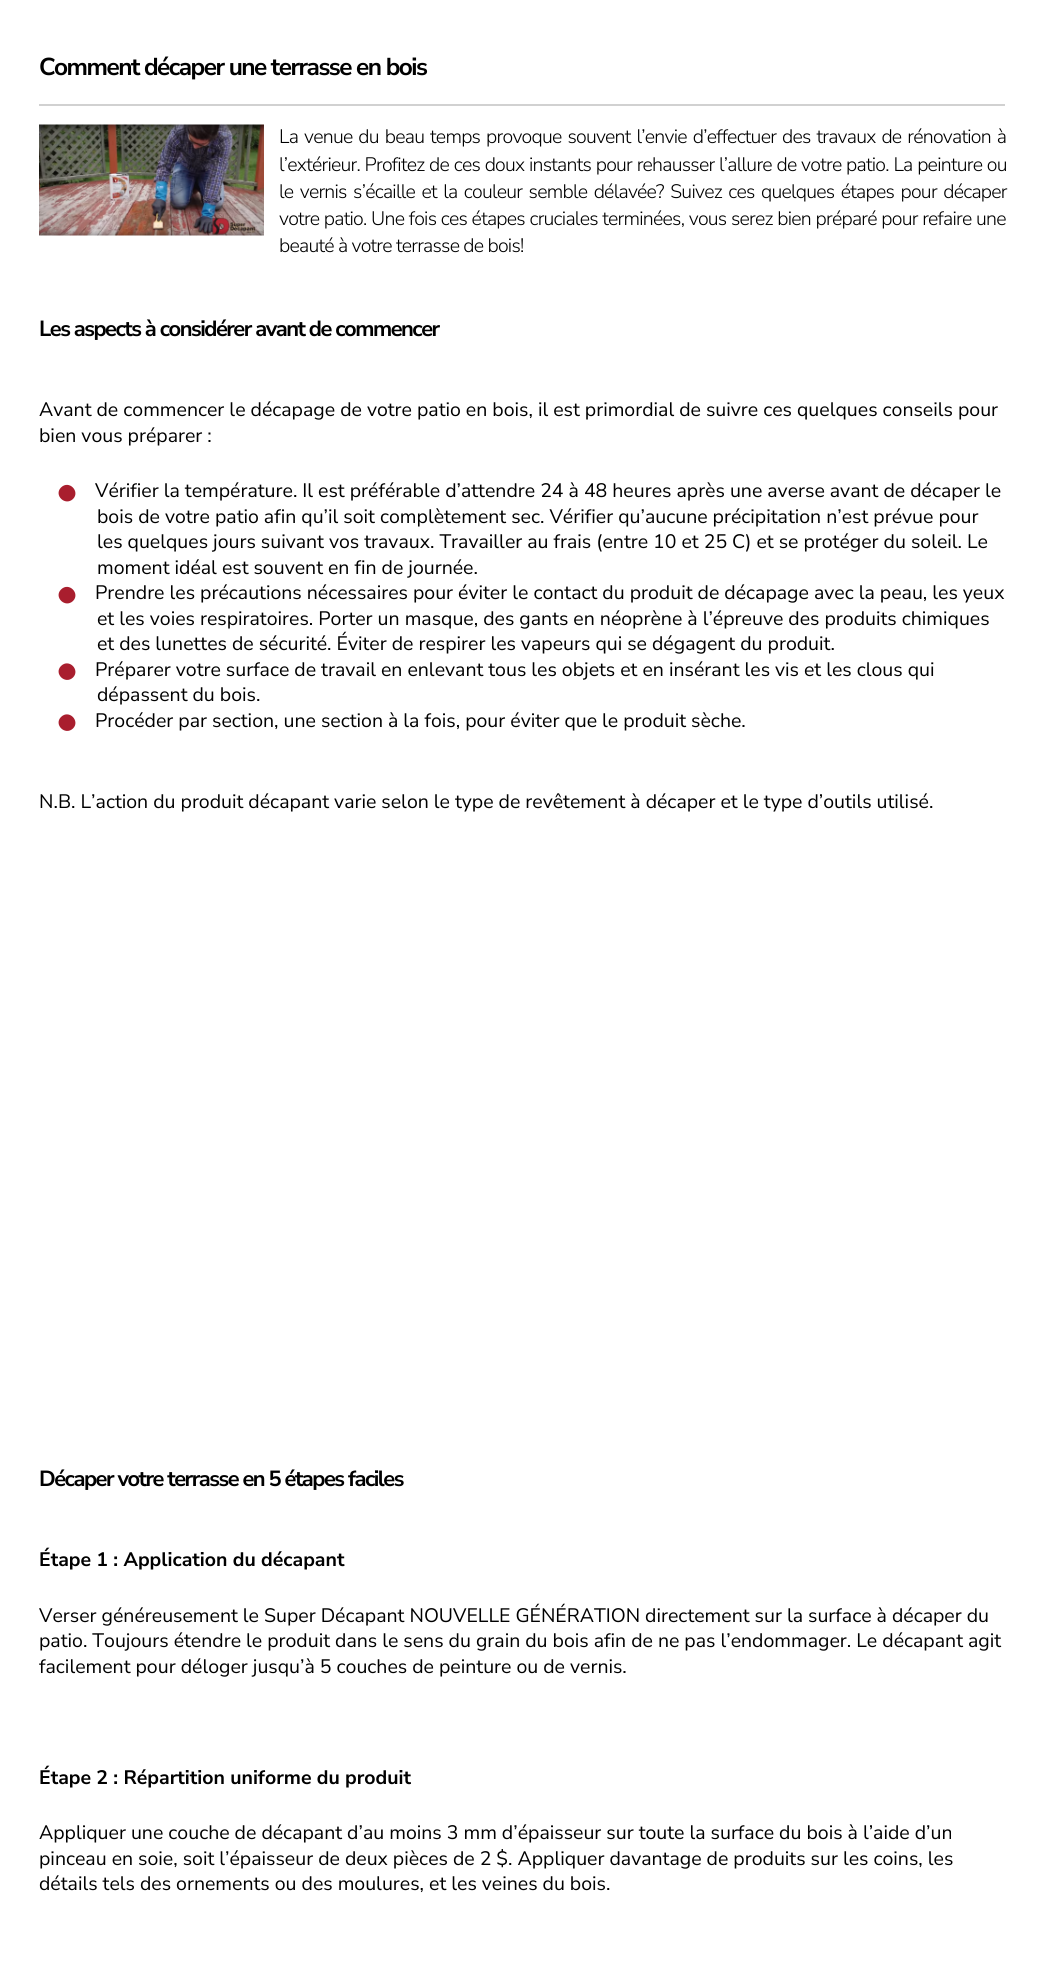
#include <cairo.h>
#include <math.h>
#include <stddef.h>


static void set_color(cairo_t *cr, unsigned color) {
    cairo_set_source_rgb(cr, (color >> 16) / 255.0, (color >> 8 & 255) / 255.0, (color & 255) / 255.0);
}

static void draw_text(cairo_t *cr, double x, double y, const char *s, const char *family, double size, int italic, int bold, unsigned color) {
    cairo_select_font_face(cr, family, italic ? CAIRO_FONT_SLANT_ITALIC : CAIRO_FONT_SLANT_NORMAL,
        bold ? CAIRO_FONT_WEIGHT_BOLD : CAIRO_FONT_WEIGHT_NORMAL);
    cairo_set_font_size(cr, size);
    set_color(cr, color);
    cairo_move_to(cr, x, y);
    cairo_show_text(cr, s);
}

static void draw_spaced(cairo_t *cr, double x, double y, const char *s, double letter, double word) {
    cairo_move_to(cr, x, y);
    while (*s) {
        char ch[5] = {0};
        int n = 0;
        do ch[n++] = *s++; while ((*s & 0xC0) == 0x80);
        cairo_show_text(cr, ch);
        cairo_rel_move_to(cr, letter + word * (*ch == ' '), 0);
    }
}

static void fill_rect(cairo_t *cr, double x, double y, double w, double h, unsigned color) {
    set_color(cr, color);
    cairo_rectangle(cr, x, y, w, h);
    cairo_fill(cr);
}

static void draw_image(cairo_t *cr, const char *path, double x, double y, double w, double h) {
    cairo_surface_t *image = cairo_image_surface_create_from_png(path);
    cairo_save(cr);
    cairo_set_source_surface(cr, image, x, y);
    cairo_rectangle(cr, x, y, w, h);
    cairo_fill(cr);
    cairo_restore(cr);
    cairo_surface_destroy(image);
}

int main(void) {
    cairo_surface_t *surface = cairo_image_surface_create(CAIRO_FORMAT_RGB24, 1043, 1965);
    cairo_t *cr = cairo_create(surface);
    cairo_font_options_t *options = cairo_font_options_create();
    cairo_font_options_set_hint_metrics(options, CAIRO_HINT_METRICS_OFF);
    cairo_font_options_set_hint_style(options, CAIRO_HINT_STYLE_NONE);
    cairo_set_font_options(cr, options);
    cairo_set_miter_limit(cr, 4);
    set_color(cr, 0xFFFFFF);
    cairo_paint(cr);
    cairo_select_font_face(cr, "Nunito Sans", CAIRO_FONT_SLANT_NORMAL, CAIRO_FONT_WEIGHT_BOLD);
    cairo_set_font_size(cr, 24.4);
    set_color(cr, 0x000000);
    draw_spaced(cr, 39, 75, "Comment décaper une terrasse en bois", -1.5, 0);
    fill_rect(cr, 39, 104, 966, 2, 0xD1D1D1);
    draw_image(cr, "assets/img1.png", 39, 124, 225, 112);
    cairo_select_font_face(cr, "Nunito Sans Light", CAIRO_FONT_SLANT_NORMAL, CAIRO_FONT_WEIGHT_NORMAL);
    cairo_set_font_size(cr, 19.5);
    set_color(cr, 0x000000);
    draw_spaced(cr, 279, 143, "La venue du beau temps provoque souvent l’envie d’effectuer des travaux de rénovation à", -0.75, 1.75);
    draw_spaced(cr, 279, 171, "l’extérieur. Profitez de ces doux instants pour rehausser l’allure de votre patio. La peinture ou", -0.75, 0.5);
    draw_spaced(cr, 279, 198, "le vernis s’écaille et la couleur semble délavée? Suivez ces quelques étapes pour décaper", -0.75, 2.25);
    draw_spaced(cr, 279, 225, "votre patio. Une fois ces étapes cruciales terminées, vous serez bien préparé pour refaire une", -0.75, 0.4);
    draw_spaced(cr, 279, 252, "beauté à votre terrasse de bois!", -0.75, 0);
    cairo_select_font_face(cr, "Nunito Sans", CAIRO_FONT_SLANT_NORMAL, CAIRO_FONT_WEIGHT_BOLD);
    cairo_set_font_size(cr, 21.9);
    draw_spaced(cr, 39, 336, "Les aspects à considérer avant de commencer", -1.5, 0);
    draw_text(cr, 39, 416, "Avant de commencer le décapage de votre patio en bois, il est primordial de suivre ces quelques conseils pour", "Nunito Sans", 19.5, 0, 0, 0x000000);
    draw_text(cr, 39, 442, "bien vous préparer :", "Nunito Sans", 19.5, 0, 0, 0x000000);
    set_color(cr, 0xA91E2E);
    cairo_new_path(cr);
    cairo_move_to(cr, 61, 487.5);
    cairo_curve_to(cr, 69, 479.5, 80.5, 491.5, 73, 499);
    cairo_curve_to(cr, 65, 506.5, 53.5, 495, 61, 487.5);
    cairo_close_path(cr);
    cairo_fill(cr);
    draw_text(cr, 95, 497, "Vérifier la température. Il est préférable d’attendre 24 à 48 heures après une averse avant de décaper le", "Nunito Sans", 19.5, 0, 0, 0x000000);
    draw_text(cr, 97, 523, "bois de votre patio afin qu’il soit complètement sec. Vérifier qu’aucune précipitation n’est prévue pour", "Nunito Sans", 19.5, 0, 0, 0x000000);
    draw_text(cr, 97, 548, "les quelques jours suivant vos travaux. Travailler au frais (entre 10 et 25 C) et se protéger du soleil. Le", "Nunito Sans", 19.5, 0, 0, 0x000000);
    draw_text(cr, 97, 574, "moment idéal est souvent en fin de journée.", "Nunito Sans", 19.5, 0, 0, 0x000000);
    set_color(cr, 0xA91E2E);
    cairo_new_path(cr);
    cairo_move_to(cr, 61, 589.5);
    cairo_curve_to(cr, 69, 581.5, 80.5, 593.5, 73, 601);
    cairo_curve_to(cr, 65, 608.5, 53.5, 597, 61, 589.5);
    cairo_close_path(cr);
    cairo_fill(cr);
    draw_text(cr, 95, 599, "Prendre les précautions nécessaires pour éviter le contact du produit de décapage avec la peau, les yeux", "Nunito Sans", 19.5, 0, 0, 0x000000);
    draw_text(cr, 97, 625, "et les voies respiratoires. Porter un masque, des gants en néoprène à l’épreuve des produits chimiques", "Nunito Sans", 19.5, 0, 0, 0x000000);
    draw_text(cr, 97, 650, "et des lunettes de sécurité. Éviter de respirer les vapeurs qui se dégagent du produit.", "Nunito Sans", 19.5, 0, 0, 0x000000);
    set_color(cr, 0xA91E2E);
    cairo_new_path(cr);
    cairo_move_to(cr, 61, 666);
    cairo_curve_to(cr, 69, 658, 80.5, 670, 73, 677.5);
    cairo_curve_to(cr, 65, 685, 53.5, 673.5, 61, 666);
    cairo_close_path(cr);
    cairo_fill(cr);
    draw_text(cr, 95, 676, "Préparer votre surface de travail en enlevant tous les objets et en insérant les vis et les clous qui", "Nunito Sans", 19.5, 0, 0, 0x000000);
    draw_text(cr, 97, 701, "dépassent du bois.", "Nunito Sans", 19.5, 0, 0, 0x000000);
    set_color(cr, 0xA91E2E);
    cairo_new_path(cr);
    cairo_move_to(cr, 61, 717);
    cairo_curve_to(cr, 69, 709, 80.5, 721, 73, 728.5);
    cairo_curve_to(cr, 65, 736, 53.5, 724.5, 61, 717);
    cairo_close_path(cr);
    cairo_fill(cr);
    draw_text(cr, 95, 727, "Procéder par section, une section à la fois, pour éviter que le produit sèche.", "Nunito Sans", 19.5, 0, 0, 0x000000);
    draw_text(cr, 39, 808, "N.B. L’action du produit décapant varie selon le type de revêtement à décaper et le type d’outils utilisé.", "Nunito Sans", 19.5, 0, 0, 0x000000);
    cairo_select_font_face(cr, "Nunito Sans", CAIRO_FONT_SLANT_NORMAL, CAIRO_FONT_WEIGHT_BOLD);
    cairo_set_font_size(cr, 21.9);
    draw_spaced(cr, 39, 1486, "Décaper votre terrasse en 5 étapes faciles", -1.5, 0);
    draw_text(cr, 39, 1566, "Étape 1 : Application du décapant", "Nunito Sans", 19.5, 0, 1, 0x000000);
    draw_text(cr, 39, 1622, "Verser généreusement le Super Décapant NOUVELLE GÉNÉRATION directement sur la surface à décaper du", "Nunito Sans", 19.5, 0, 0, 0x000000);
    draw_text(cr, 39, 1647, "patio. Toujours étendre le produit dans le sens du grain du bois afin de ne pas l’endommager. Le décapant agit", "Nunito Sans", 19.5, 0, 0, 0x000000);
    draw_text(cr, 39, 1673, "facilement pour déloger jusqu’à 5 couches de peinture ou de vernis.", "Nunito Sans", 19.5, 0, 0, 0x000000);
    draw_text(cr, 39, 1784, "Étape 2 : Répartition uniforme du produit", "Nunito Sans", 19.5, 0, 1, 0x000000);
    draw_text(cr, 39, 1839, "Appliquer une couche de décapant d’au moins 3 mm d’épaisseur sur toute la surface du bois à l’aide d’un", "Nunito Sans", 19.5, 0, 0, 0x000000);
    draw_text(cr, 39, 1865, "pinceau en soie, soit l’épaisseur de deux pièces de 2 $. Appliquer davantage de produits sur les coins, les", "Nunito Sans", 19.5, 0, 0, 0x000000);
    draw_text(cr, 39, 1890, "détails tels des ornements ou des moulures, et les veines du bois.", "Nunito Sans", 19.5, 0, 0, 0x000000);
    cairo_surface_write_to_png(surface, "output.png");
    cairo_font_options_destroy(options);
    cairo_destroy(cr);
    cairo_surface_destroy(surface);
    return 0;
}
